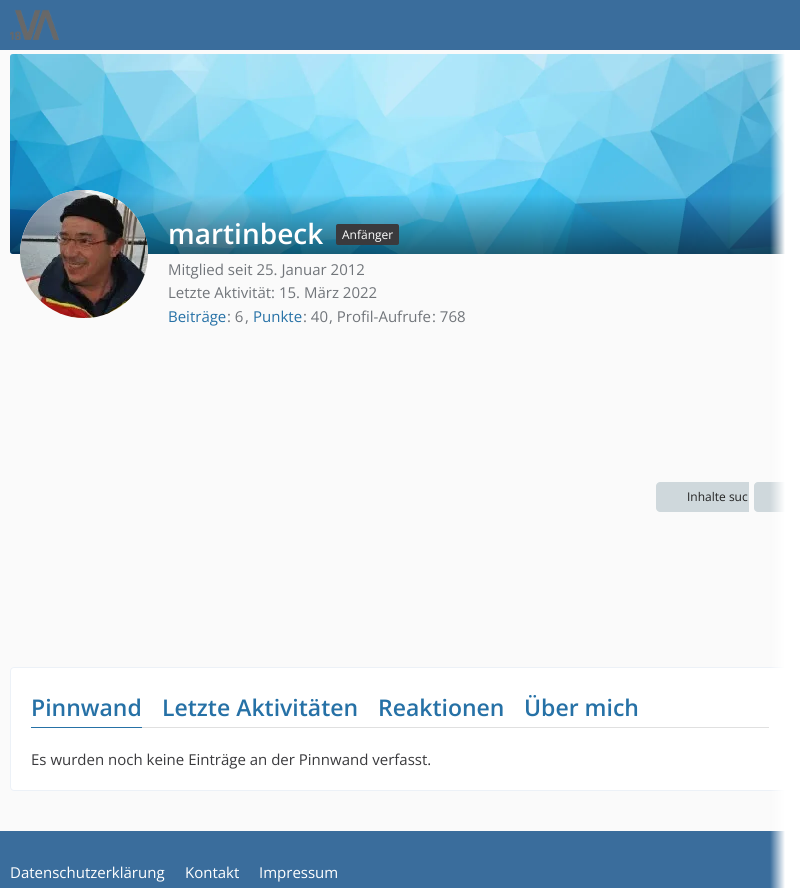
#include <cairo.h>
#include <math.h>
#include <stddef.h>


static void set_color(cairo_t *cr, unsigned color) {
    cairo_set_source_rgb(cr, (color >> 16) / 255.0, (color >> 8 & 255) / 255.0, (color & 255) / 255.0);
}

static void draw_text(cairo_t *cr, double x, double y, const char *s, const char *family, double size, int italic, int bold, unsigned color) {
    cairo_select_font_face(cr, family, italic ? CAIRO_FONT_SLANT_ITALIC : CAIRO_FONT_SLANT_NORMAL,
        bold ? CAIRO_FONT_WEIGHT_BOLD : CAIRO_FONT_WEIGHT_NORMAL);
    cairo_set_font_size(cr, size);
    set_color(cr, color);
    cairo_move_to(cr, x, y);
    cairo_show_text(cr, s);
}

static void fill_rect(cairo_t *cr, double x, double y, double w, double h, unsigned color) {
    set_color(cr, color);
    cairo_rectangle(cr, x, y, w, h);
    cairo_fill(cr);
}

static void rounded_rect(cairo_t *cr, double x, double y, double w, double h, double r) {
    cairo_new_sub_path(cr);
    cairo_arc(cr, x + w - r, y + h - r, r, 0, M_PI / 2);
    cairo_arc(cr, x + r, y + h - r, r, M_PI / 2, M_PI);
    cairo_arc(cr, x + r, y + r, r, M_PI, 1.5 * M_PI);
    cairo_arc(cr, x + w - r, y + r, r, 1.5 * M_PI, 2 * M_PI);
    cairo_close_path(cr);
}

static void draw_image(cairo_t *cr, const char *path, double x, double y, double w, double h) {
    cairo_surface_t *image = cairo_image_surface_create_from_png(path);
    cairo_save(cr);
    cairo_set_source_surface(cr, image, x, y);
    cairo_rectangle(cr, x, y, w, h);
    cairo_fill(cr);
    cairo_restore(cr);
    cairo_surface_destroy(image);
}

int main(void) {
    cairo_surface_t *surface = cairo_image_surface_create(CAIRO_FORMAT_RGB24, 800, 888);
    cairo_t *cr = cairo_create(surface);
    cairo_font_options_t *options = cairo_font_options_create();
    cairo_font_options_set_hint_metrics(options, CAIRO_HINT_METRICS_OFF);
    cairo_font_options_set_hint_style(options, CAIRO_HINT_STYLE_NONE);
    cairo_set_font_options(cr, options);
    cairo_set_miter_limit(cr, 4);
    cairo_pattern_t *gradient;
    set_color(cr, 0xFAFAFA);
    cairo_paint(cr);
    fill_rect(cr, 0, 0, 800, 50, 0x3A6D9C);
    draw_image(cr, "assets/img1.png", 10, 9, 49, 31);
    draw_image(cr, "assets/img2.png", 10, 54, 775, 200);
    gradient = cairo_pattern_create_linear(400, 54, 400, 254);
    cairo_pattern_add_color_stop_rgba(gradient, 0.7, 0, 0, 0, 0);
    cairo_pattern_add_color_stop_rgba(gradient, 1, 0, 0, 0, 0.5);
    cairo_set_source(cr, gradient);
    cairo_pattern_destroy(gradient);
    cairo_new_path(cr);
    cairo_move_to(cr, 10, 54);
    cairo_line_to(cr, 790, 54);
    cairo_line_to(cr, 790, 251);
    cairo_curve_to(cr, 790, 252.5, 788.5, 254, 787, 254);
    cairo_line_to(cr, 13, 254);
    cairo_curve_to(cr, 11.5, 254, 10, 252.5, 10, 251);
    cairo_close_path(cr);
    cairo_fill(cr);
    set_color(cr, 0xFFFFFF);
    cairo_arc(cr, 84, 254, 64, 0, 2 * M_PI);
    cairo_fill(cr);
    draw_image(cr, "assets/img3.png", 20, 190, 128, 128);
    draw_text(cr, 168, 244, "martinbeck", "Open Sans SemiBold", 28, 0, 0, 0xFFFFFF);
    set_color(cr, 0x3A3A3D);
    rounded_rect(cr, 336, 224, 63, 21, 2);
    cairo_fill(cr);
    draw_text(cr, 342, 239, "Anfänger", "Open Sans", 12, 0, 0, 0xFFFFFF);
    draw_text(cr, 168, 275, "Mitglied seit 25. Januar 2012", "Open Sans", 15, 0, 0, 0x71757A);
    draw_text(cr, 168, 298, "Letzte Aktivität: 15. März 2022", "Open Sans", 15, 0, 0, 0x71757A);
    draw_text(cr, 168, 322, "Beiträge", "Open Sans", 15, 0, 0, 0x2671A6);
    draw_text(cr, 227, 322, ": 6", "Open Sans", 15, 0, 0, 0x71757A);
    draw_text(cr, 245, 322, ",", "Open Sans", 15, 0, 0, 0x71757A);
    draw_text(cr, 253, 322, "Punkte", "Open Sans", 15, 0, 0, 0x2671A6);
    draw_text(cr, 303, 322, ": 40", "Open Sans", 15, 0, 0, 0x71757A);
    draw_text(cr, 329, 322, ", Profil-Aufrufe", "Open Sans", 15, 0, 0, 0x71757A);
    draw_text(cr, 432, 322, ": 768", "Open Sans", 15, 0, 0, 0x71757A);
    set_color(cr, 0xCFD8DC);
    cairo_new_path(cr);
    cairo_move_to(cr, 660, 482);
    cairo_line_to(cr, 749, 482);
    cairo_line_to(cr, 749, 512);
    cairo_line_to(cr, 660, 512);
    cairo_curve_to(cr, 658, 512, 656, 510, 656, 508);
    cairo_line_to(cr, 656, 486);
    cairo_curve_to(cr, 656, 484, 658, 482, 660, 482);
    cairo_close_path(cr);
    cairo_fill(cr);
    draw_text(cr, 687, 501, "Inhalte suc", "Open Sans", 12, 0, 0, 0x212121);
    set_color(cr, 0xCFD8DC);
    rounded_rect(cr, 754, 482, 36, 30, 4);
    cairo_fill(cr);
    set_color(cr, 0xFFFFFF);
    rounded_rect(cr, 10.5, 667.5, 779, 123, 3.5);
    cairo_fill_preserve(cr);
    set_color(cr, 0xECF1F7);
    cairo_set_line_width(cr, 1);
    cairo_stroke(cr);
    fill_rect(cr, 142, 727, 627, 1, 0xE0E0E0);
    draw_text(cr, 31, 716, "Pinnwand", "Open Sans SemiBold", 23, 0, 0, 0x2671A6);
    fill_rect(cr, 31, 727, 111, 1, 0x2671A6);
    draw_text(cr, 162, 716, "Letzte Aktivitäten", "Open Sans SemiBold", 23, 0, 0, 0x2671A6);
    draw_text(cr, 378, 716, "Reaktionen", "Open Sans SemiBold", 23, 0, 0, 0x2671A6);
    draw_text(cr, 524, 716, "Über mich", "Open Sans SemiBold", 23, 0, 0, 0x2671A6);
    fill_rect(cr, 0, 831, 785, 57, 0x3A6D9C);
    gradient = cairo_pattern_create_linear(770, 450, 800, 450);
    cairo_pattern_add_color_stop_rgba(gradient, 0, 1, 1, 1, 0);
    cairo_pattern_add_color_stop_rgba(gradient, 0.5, 1, 1, 1, 1);
    cairo_set_source(cr, gradient);
    cairo_pattern_destroy(gradient);
    cairo_rectangle(cr, 770, 50, 30, 838);
    cairo_fill(cr);
    draw_text(cr, 31, 765, "Es wurden noch keine Einträge an der Pinnwand verfasst.", "Open Sans", 15, 0, 0, 0x3A3A3D);
    draw_text(cr, 10, 878, "Datenschutzerklärung", "Open Sans", 15, 0, 0, 0xFFFFFF);
    draw_text(cr, 185, 878, "Kontakt", "Open Sans", 15, 0, 0, 0xFFFFFF);
    draw_text(cr, 259, 878, "Impressum", "Open Sans", 15, 0, 0, 0xFFFFFF);
    cairo_surface_write_to_png(surface, "output.png");
    cairo_font_options_destroy(options);
    cairo_destroy(cr);
    cairo_surface_destroy(surface);
    return 0;
}
